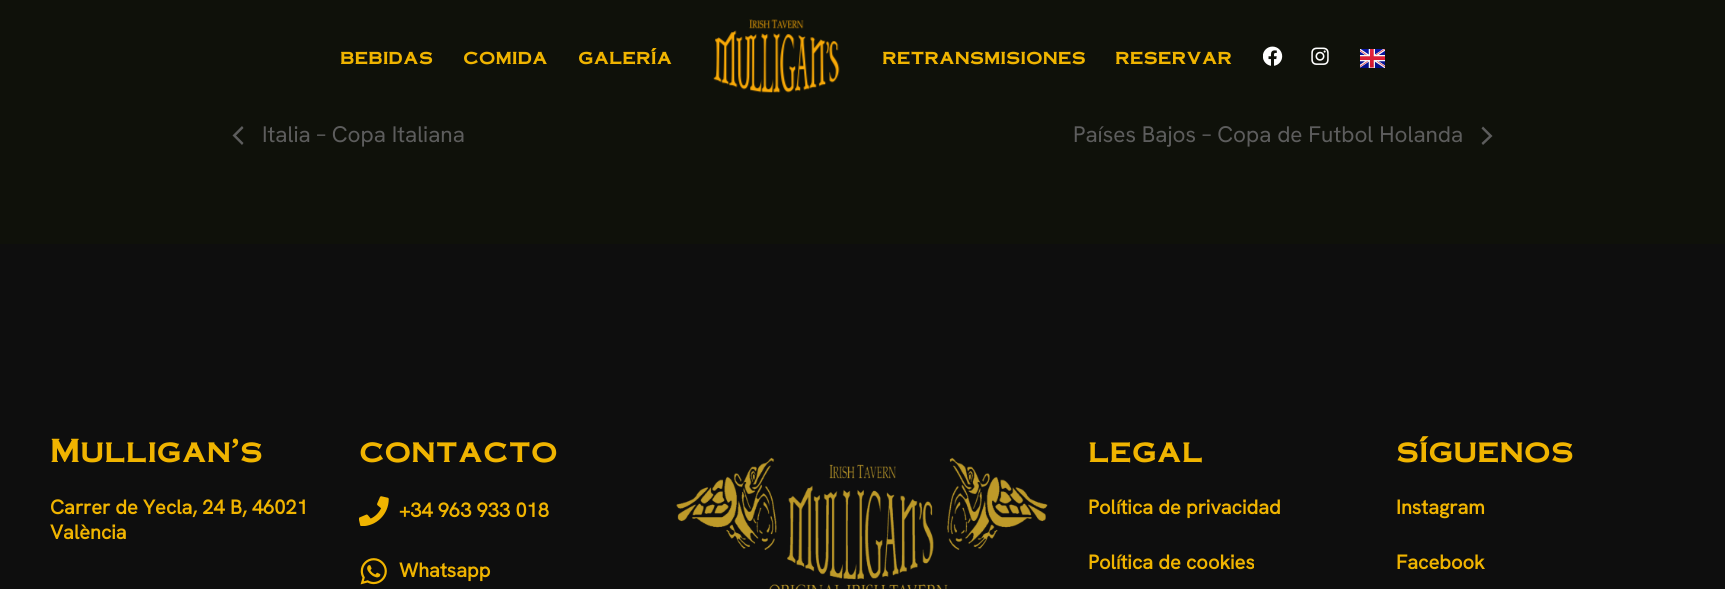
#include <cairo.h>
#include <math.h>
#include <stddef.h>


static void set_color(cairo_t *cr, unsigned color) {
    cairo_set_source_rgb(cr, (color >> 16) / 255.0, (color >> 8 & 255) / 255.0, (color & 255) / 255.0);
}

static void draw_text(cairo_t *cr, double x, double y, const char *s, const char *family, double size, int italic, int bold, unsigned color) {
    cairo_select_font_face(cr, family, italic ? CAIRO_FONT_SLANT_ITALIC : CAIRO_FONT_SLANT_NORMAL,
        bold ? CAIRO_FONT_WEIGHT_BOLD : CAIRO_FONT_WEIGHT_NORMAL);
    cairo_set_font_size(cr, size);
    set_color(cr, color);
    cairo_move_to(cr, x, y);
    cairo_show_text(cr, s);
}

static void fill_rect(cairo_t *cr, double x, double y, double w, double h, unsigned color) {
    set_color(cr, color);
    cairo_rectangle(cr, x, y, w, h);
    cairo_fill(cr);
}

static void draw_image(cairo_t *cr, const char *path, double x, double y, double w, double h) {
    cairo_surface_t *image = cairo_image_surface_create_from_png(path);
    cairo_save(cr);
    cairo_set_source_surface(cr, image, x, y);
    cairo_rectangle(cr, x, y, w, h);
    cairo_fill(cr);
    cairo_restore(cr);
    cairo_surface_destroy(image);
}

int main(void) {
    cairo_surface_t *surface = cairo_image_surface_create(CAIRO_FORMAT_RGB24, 1725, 589);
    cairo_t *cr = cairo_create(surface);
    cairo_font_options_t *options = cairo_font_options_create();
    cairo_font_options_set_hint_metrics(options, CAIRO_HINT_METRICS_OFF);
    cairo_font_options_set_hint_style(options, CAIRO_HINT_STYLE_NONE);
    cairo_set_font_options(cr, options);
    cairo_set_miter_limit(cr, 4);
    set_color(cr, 0x0F110A);
    cairo_paint(cr);
    draw_text(cr, 340, 64, "bebidas", "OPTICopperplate", 17.5, 0, 1, 0xF0B400);
    draw_text(cr, 463, 64, "comida", "OPTICopperplate", 17.5, 0, 1, 0xF0B400);
    draw_text(cr, 578, 64, "galería", "OPTICopperplate", 17.5, 0, 1, 0xF0B400);
    draw_image(cr, "assets/img1.png", 713, 19, 127, 74);
    draw_text(cr, 882, 64, "retransmisiones", "OPTICopperplate", 17.5, 0, 1, 0xF0B400);
    draw_text(cr, 1115, 64, "reservar", "OPTICopperplate", 17.5, 0, 1, 0xF0B400);
    draw_image(cr, "assets/img2.png", 1263, 46, 20, 20);
    draw_image(cr, "assets/img3.png", 1311, 47, 18, 18);
    draw_image(cr, "assets/img4.png", 1360, 49, 25, 19);
    set_color(cr, 0x5D5D5D);
    cairo_new_path(cr);
    cairo_move_to(cr, 243.5, 143);
    cairo_line_to(cr, 242, 145);
    cairo_line_to(cr, 232.5, 135.5);
    cairo_line_to(cr, 242, 126);
    cairo_line_to(cr, 243.5, 128);
    cairo_line_to(cr, 236, 135.5);
    cairo_close_path(cr);
    cairo_fill(cr);
    draw_text(cr, 262, 142, "Italia – Copa Italiana", "Hanken Grotesk", 22.5, 0, 0, 0x5D5D5D);
    draw_text(cr, 1073, 142, "Países Bajos – Copa de Futbol Holanda", "Hanken Grotesk", 22.5, 0, 0, 0x5D5D5D);
    cairo_new_path(cr);
    cairo_move_to(cr, 1481.5, 128.5);
    cairo_line_to(cr, 1483, 126.5);
    cairo_line_to(cr, 1492.5, 136);
    cairo_line_to(cr, 1483, 145);
    cairo_line_to(cr, 1481.5, 143);
    cairo_line_to(cr, 1489, 136);
    cairo_close_path(cr);
    cairo_fill(cr);
    fill_rect(cr, 0, 244, 1725, 345, 0x0E0E0E);
    draw_text(cr, 50, 462, "Mulligan's", "OPTICopperplate", 28.25, 0, 1, 0xF0B400);
    draw_text(cr, 50, 514, "Carrer de Yecla, 24 B, 46021", "Hanken Grotesk", 20, 0, 1, 0xF0B400);
    draw_text(cr, 50, 539, "València", "Hanken Grotesk", 20, 0, 1, 0xF0B400);
    draw_text(cr, 359, 462, "contacto", "OPTICopperplate", 28.25, 0, 1, 0xF0B400);
    draw_image(cr, "assets/img5.png", 359, 496, 30, 30);
    draw_text(cr, 399, 517, "+34 963 933 018", "Hanken Grotesk", 20, 0, 1, 0xF0B400);
    draw_image(cr, "assets/img6.png", 360, 558, 27, 27);
    draw_text(cr, 399, 577, "Whatsapp", "Hanken Grotesk", 20, 0, 1, 0xF0B400);
    draw_image(cr, "assets/img7.png", 676, 457, 372, 132);
    draw_text(cr, 1088, 462, "legal", "OPTICopperplate", 28.25, 0, 1, 0xF0B400);
    draw_text(cr, 1088, 514, "Política de privacidad", "Hanken Grotesk", 20, 0, 1, 0xF0B400);
    draw_text(cr, 1088, 569, "Política de cookies", "Hanken Grotesk", 20, 0, 1, 0xF0B400);
    draw_text(cr, 1396, 462, "síguenos", "OPTICopperplate", 28.25, 0, 1, 0xF0B400);
    draw_text(cr, 1396, 514, "Instagram", "Hanken Grotesk", 20, 0, 1, 0xF0B400);
    draw_text(cr, 1396, 569, "Facebook", "Hanken Grotesk", 20, 0, 1, 0xF0B400);
    cairo_surface_write_to_png(surface, "output.png");
    cairo_font_options_destroy(options);
    cairo_destroy(cr);
    cairo_surface_destroy(surface);
    return 0;
}
